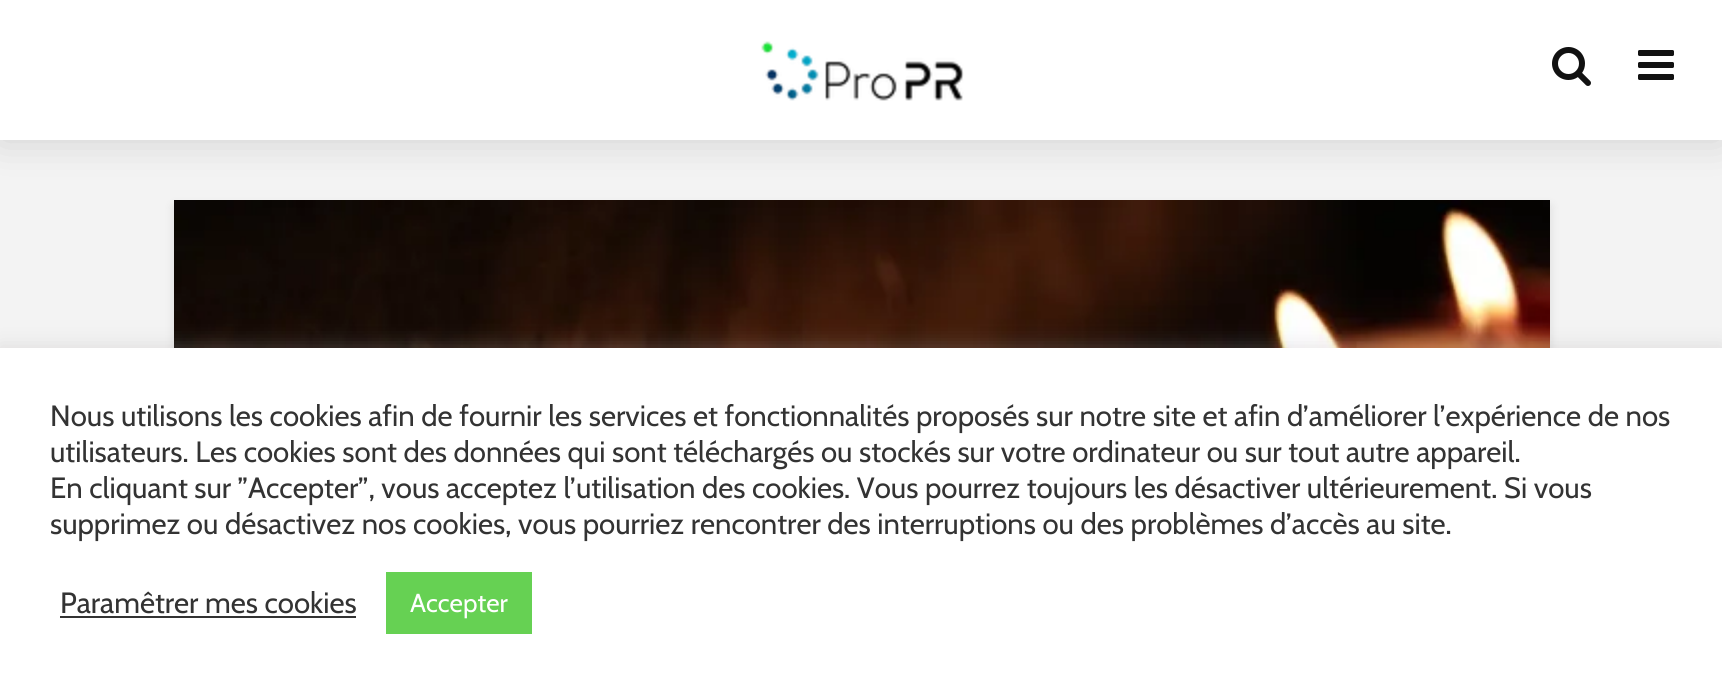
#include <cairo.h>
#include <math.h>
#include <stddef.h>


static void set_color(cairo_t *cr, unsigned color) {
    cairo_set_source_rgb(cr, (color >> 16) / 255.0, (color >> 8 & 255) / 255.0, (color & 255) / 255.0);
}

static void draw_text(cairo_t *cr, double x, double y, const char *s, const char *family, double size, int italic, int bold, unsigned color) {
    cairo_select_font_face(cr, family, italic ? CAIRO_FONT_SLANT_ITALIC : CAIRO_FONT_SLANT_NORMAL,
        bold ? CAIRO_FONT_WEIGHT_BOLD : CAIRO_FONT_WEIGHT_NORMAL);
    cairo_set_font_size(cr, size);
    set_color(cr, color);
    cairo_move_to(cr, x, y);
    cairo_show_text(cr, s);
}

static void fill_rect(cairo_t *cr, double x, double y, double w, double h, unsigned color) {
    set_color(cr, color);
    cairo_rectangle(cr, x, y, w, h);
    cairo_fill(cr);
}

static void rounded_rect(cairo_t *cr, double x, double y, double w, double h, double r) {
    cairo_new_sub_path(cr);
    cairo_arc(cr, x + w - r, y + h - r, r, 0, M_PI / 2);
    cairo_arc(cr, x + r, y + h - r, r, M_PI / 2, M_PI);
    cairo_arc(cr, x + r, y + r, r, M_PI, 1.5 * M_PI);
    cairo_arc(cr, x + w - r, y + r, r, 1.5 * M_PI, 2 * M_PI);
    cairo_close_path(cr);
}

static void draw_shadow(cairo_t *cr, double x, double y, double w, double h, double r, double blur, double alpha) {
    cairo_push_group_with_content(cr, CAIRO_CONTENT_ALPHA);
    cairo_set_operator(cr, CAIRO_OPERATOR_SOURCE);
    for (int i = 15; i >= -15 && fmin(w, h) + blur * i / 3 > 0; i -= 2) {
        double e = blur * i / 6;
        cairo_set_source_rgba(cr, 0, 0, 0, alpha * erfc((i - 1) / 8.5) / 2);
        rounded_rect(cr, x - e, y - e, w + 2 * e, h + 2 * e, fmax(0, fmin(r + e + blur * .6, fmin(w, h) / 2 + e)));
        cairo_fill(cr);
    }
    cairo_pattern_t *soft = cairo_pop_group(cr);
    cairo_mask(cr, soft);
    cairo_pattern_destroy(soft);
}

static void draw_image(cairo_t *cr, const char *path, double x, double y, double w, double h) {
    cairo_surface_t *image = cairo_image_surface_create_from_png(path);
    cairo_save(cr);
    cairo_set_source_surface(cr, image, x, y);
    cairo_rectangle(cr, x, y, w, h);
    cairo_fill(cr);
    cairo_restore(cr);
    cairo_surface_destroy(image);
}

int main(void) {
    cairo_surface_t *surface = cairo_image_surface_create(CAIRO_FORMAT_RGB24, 1722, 693);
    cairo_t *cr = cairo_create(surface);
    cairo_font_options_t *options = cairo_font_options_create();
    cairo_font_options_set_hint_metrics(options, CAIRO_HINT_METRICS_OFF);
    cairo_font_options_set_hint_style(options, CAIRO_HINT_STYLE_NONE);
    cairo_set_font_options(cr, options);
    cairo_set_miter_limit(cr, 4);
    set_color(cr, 0xF3F3F3);
    cairo_paint(cr);
    set_color(cr, 0x000101);
    draw_shadow(cr, 174, 206, 1376, 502, 0, 5, 0.1);
    draw_image(cr, "assets/img4.png", 174, 200, 1376, 148);
    set_color(cr, 0x000000);
    draw_shadow(cr, 0, 0, 1722, 140, 0, 20, 0.15);
    fill_rect(cr, 0, 0, 1722, 140, 0xFFFFFF);
    draw_image(cr, "assets/img1.png", 761, 41, 203, 60);
    draw_image(cr, "assets/img2.png", 1552, 47, 39, 39);
    draw_image(cr, "assets/img3.png", 1638, 50, 36, 30);
    set_color(cr, 0xACABAB);
    draw_shadow(cr, 0, 346, 1722, 346, 0, 10, 0.3);
    fill_rect(cr, 0, 348, 1722, 345, 0xFFFFFF);
    draw_text(cr, 50, 426, "Nous utilisons les cookies afin de fournir les services et fonctionnalités proposés sur notre site et afin d’améliorer l’expérience de nos", "Cabin", 29.33, 0, 0, 0x333333);
    draw_text(cr, 50, 462, "utilisateurs. Les cookies sont des données qui sont téléchargés ou stockés sur votre ordinateur ou sur tout autre appareil.", "Cabin", 29.33, 0, 0, 0x333333);
    draw_text(cr, 50, 498, "En cliquant sur ”Accepter”, vous acceptez l’utilisation des cookies. Vous pourrez toujours les désactiver ultérieurement. Si vous", "Cabin", 29.33, 0, 0, 0x333333);
    draw_text(cr, 50, 534, "supprimez ou désactivez nos cookies, vous pourriez rencontrer des interruptions ou des problèmes d’accès au site.", "Cabin", 29.33, 0, 0, 0x333333);
    draw_text(cr, 60, 613, "Paramêtrer mes cookies", "Cabin", 29.33, 0, 0, 0x333333);
    fill_rect(cr, 60, 616, 296, 2, 0x333333);
    fill_rect(cr, 386, 572, 146, 62, 0x66D153);
    draw_text(cr, 410, 612, "Accepter", "Cabin", 26, 0, 0, 0xFFFFFF);
    cairo_surface_write_to_png(surface, "output.png");
    cairo_font_options_destroy(options);
    cairo_destroy(cr);
    cairo_surface_destroy(surface);
    return 0;
}
